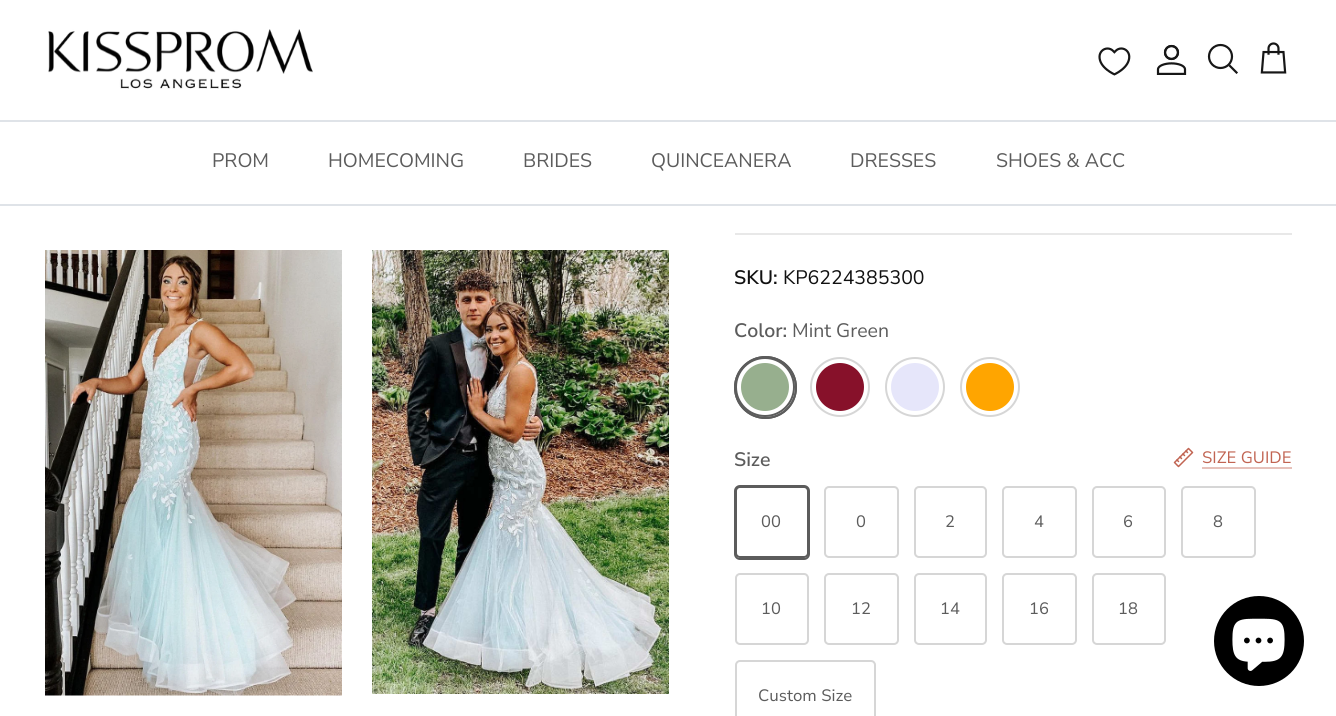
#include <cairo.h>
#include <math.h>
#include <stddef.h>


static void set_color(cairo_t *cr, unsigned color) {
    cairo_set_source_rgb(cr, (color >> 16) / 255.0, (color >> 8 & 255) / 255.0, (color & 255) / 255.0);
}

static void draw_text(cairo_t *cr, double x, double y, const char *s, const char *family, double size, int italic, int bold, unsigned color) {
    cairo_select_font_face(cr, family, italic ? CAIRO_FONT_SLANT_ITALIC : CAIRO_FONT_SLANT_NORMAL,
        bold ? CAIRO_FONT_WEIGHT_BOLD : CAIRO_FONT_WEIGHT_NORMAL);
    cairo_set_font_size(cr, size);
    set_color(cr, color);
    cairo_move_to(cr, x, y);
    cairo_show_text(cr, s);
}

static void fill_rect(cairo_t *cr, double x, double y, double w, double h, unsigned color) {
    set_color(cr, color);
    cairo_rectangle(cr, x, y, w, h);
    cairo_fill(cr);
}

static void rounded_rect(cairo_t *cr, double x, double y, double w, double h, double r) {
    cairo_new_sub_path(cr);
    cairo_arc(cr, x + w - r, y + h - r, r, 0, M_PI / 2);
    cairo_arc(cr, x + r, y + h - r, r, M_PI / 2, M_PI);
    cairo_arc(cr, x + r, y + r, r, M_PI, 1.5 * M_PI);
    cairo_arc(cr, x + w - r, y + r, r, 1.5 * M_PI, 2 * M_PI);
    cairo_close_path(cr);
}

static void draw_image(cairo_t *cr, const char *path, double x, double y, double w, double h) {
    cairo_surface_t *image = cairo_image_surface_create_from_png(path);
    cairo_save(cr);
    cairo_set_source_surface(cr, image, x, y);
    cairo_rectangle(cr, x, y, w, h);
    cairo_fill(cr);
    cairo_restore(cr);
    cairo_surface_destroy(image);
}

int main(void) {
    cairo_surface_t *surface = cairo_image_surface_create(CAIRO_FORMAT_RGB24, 1336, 716);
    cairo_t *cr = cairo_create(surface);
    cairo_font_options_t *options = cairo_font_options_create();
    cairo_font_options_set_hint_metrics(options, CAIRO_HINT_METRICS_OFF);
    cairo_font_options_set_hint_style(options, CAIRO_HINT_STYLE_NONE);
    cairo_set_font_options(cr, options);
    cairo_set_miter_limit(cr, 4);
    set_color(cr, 0xFFFFFF);
    cairo_paint(cr);
    fill_rect(cr, 0, 120, 1336, 2, 0xDFE3E8);
    draw_image(cr, "assets/img1.png", 48, 29, 265, 60);
    draw_image(cr, "assets/img2.png", 1098, 47, 33, 29);
    draw_image(cr, "assets/img3.png", 1156, 44, 31, 31);
    cairo_arc(cr, 1220.5, 56.5, 11.5, 0, 2 * M_PI);
    set_color(cr, 0x171717);
    cairo_set_line_width(cr, 2.2);
    cairo_stroke(cr);
    cairo_new_path(cr);
    cairo_move_to(cr, 1230, 66);
    cairo_line_to(cr, 1236.5, 72.5);
    cairo_set_line_cap(cr, CAIRO_LINE_CAP_SQUARE);
    cairo_stroke(cr);
    draw_image(cr, "assets/img4.png", 1260, 42, 27, 32);
    fill_rect(cr, 0, 204, 1336, 2, 0xDFE3E8);
    draw_text(cr, 212, 167, "PROM", "Nunito Sans", 19.5, 0, 0, 0x5C5C5C);
    draw_text(cr, 328, 167, "HOMECOMING", "Nunito Sans", 19.5, 0, 0, 0x5C5C5C);
    draw_text(cr, 523, 167, "BRIDES", "Nunito Sans", 19.5, 0, 0, 0x5C5C5C);
    draw_text(cr, 651, 167, "QUINCEANERA", "Nunito Sans", 19.5, 0, 0, 0x5C5C5C);
    draw_text(cr, 850, 167, "DRESSES", "Nunito Sans", 19.5, 0, 0, 0x5C5C5C);
    draw_text(cr, 996, 167, "SHOES & ACC", "Nunito Sans", 19.5, 0, 0, 0x5C5C5C);
    draw_image(cr, "assets/img5.png", 45, 250, 297, 446);
    draw_image(cr, "assets/img6.png", 372, 250, 297, 444);
    fill_rect(cr, 735, 233, 557, 2, 0xE8E8E8);
    draw_text(cr, 734, 284, "SKU:", "Nunito Sans SemiBold", 19.5, 0, 0, 0x111111);
    draw_text(cr, 783, 284, "KP6224385300", "Nunito Sans", 19.5, 0, 0, 0x111111);
    draw_text(cr, 734, 337, "Color:", "Nunito Sans SemiBold", 19.5, 0, 0, 0x5C5C5C);
    draw_text(cr, 792, 337, "Mint Green", "Nunito Sans", 19.5, 0, 0, 0x5C5C5C);
    cairo_new_path(cr);
    cairo_arc(cr, 765.5, 387.5, 30.5, 0, 2 * M_PI);
    cairo_set_line_width(cr, 2);
    cairo_set_line_cap(cr, CAIRO_LINE_CAP_BUTT);
    cairo_stroke(cr);
    set_color(cr, 0x97AF8E);
    cairo_arc(cr, 765, 387, 24, 0, 2 * M_PI);
    cairo_fill(cr);
    cairo_arc(cr, 765.5, 387.5, 30.5, 0, 2 * M_PI);
    set_color(cr, 0x5C5C5C);
    cairo_stroke(cr);
    cairo_arc(cr, 765, 387, 29, 0, 2 * M_PI);
    cairo_stroke(cr);
    set_color(cr, 0x87112A);
    cairo_arc(cr, 840, 387, 24, 0, 2 * M_PI);
    cairo_fill(cr);
    cairo_arc(cr, 840, 387, 29, 0, 2 * M_PI);
    set_color(cr, 0xD6D6D6);
    cairo_stroke(cr);
    set_color(cr, 0xE6E6FA);
    cairo_arc(cr, 915, 387, 24, 0, 2 * M_PI);
    cairo_fill(cr);
    cairo_arc(cr, 915, 387, 29, 0, 2 * M_PI);
    set_color(cr, 0xD6D6D6);
    cairo_stroke(cr);
    set_color(cr, 0xFFA500);
    cairo_arc(cr, 990, 387, 24, 0, 2 * M_PI);
    cairo_fill(cr);
    cairo_arc(cr, 990, 387, 29, 0, 2 * M_PI);
    set_color(cr, 0xD6D6D6);
    cairo_stroke(cr);
    draw_text(cr, 734, 466, "Size", "Nunito Sans SemiBold", 19.5, 0, 0, 0x5C5C5C);
    draw_image(cr, "assets/img7.png", 1173, 447, 21, 21);
    draw_text(cr, 1202, 463, "SIZE GUIDE", "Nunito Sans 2", 16.5, 0, 0, 0xC16452);
    fill_rect(cr, 1202, 467, 90, 2, 0xE6C1BA);
    rounded_rect(cr, 735, 486, 74, 73, 5);
    set_color(cr, 0x5C5C5C);
    cairo_stroke(cr);
    set_color(cr, 0xFFFFFF);
    rounded_rect(cr, 736, 487, 72, 70, 4);
    cairo_fill_preserve(cr);
    set_color(cr, 0x5C5C5C);
    cairo_stroke(cr);
    draw_text(cr, 761, 527, "00", "Nunito Sans 2", 16.5, 0, 0, 0x5C5C5C);
    rounded_rect(cr, 825, 487, 73, 70, 4);
    set_color(cr, 0xD6D6D6);
    cairo_stroke(cr);
    draw_text(cr, 856, 527, "0", "Nunito Sans 2", 16.5, 0, 0, 0x5C5C5C);
    rounded_rect(cr, 915, 487, 71, 70, 4);
    set_color(cr, 0xD6D6D6);
    cairo_stroke(cr);
    draw_text(cr, 945, 527, "2", "Nunito Sans 2", 16.5, 0, 0, 0x5C5C5C);
    rounded_rect(cr, 1003, 487, 73, 70, 4);
    set_color(cr, 0xD6D6D6);
    cairo_stroke(cr);
    draw_text(cr, 1034, 527, "4", "Nunito Sans 2", 16.5, 0, 0, 0x5C5C5C);
    rounded_rect(cr, 1093, 487, 72, 70, 4);
    set_color(cr, 0xD6D6D6);
    cairo_stroke(cr);
    draw_text(cr, 1123, 527, "6", "Nunito Sans 2", 16.5, 0, 0, 0x5C5C5C);
    rounded_rect(cr, 1182, 487, 73, 70, 4);
    set_color(cr, 0xD6D6D6);
    cairo_stroke(cr);
    draw_text(cr, 1213, 527, "8", "Nunito Sans 2", 16.5, 0, 0, 0x5C5C5C);
    rounded_rect(cr, 736, 574, 72, 70, 4);
    set_color(cr, 0xD6D6D6);
    cairo_stroke(cr);
    draw_text(cr, 761, 614, "10", "Nunito Sans 2", 16.5, 0, 0, 0x5C5C5C);
    rounded_rect(cr, 825, 574, 73, 70, 4);
    set_color(cr, 0xD6D6D6);
    cairo_stroke(cr);
    draw_text(cr, 851, 614, "12", "Nunito Sans 2", 16.5, 0, 0, 0x5C5C5C);
    rounded_rect(cr, 915, 574, 71, 70, 4);
    set_color(cr, 0xD6D6D6);
    cairo_stroke(cr);
    draw_text(cr, 940, 614, "14", "Nunito Sans 2", 16.5, 0, 0, 0x5C5C5C);
    rounded_rect(cr, 1003, 574, 73, 70, 4);
    set_color(cr, 0xD6D6D6);
    cairo_stroke(cr);
    draw_text(cr, 1029, 614, "16", "Nunito Sans 2", 16.5, 0, 0, 0x5C5C5C);
    rounded_rect(cr, 1093, 574, 72, 70, 4);
    set_color(cr, 0xD6D6D6);
    cairo_stroke(cr);
    draw_text(cr, 1118, 614, "18", "Nunito Sans 2", 16.5, 0, 0, 0x5C5C5C);
    rounded_rect(cr, 736, 661, 139, 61, 4);
    set_color(cr, 0xD6D6D6);
    cairo_stroke(cr);
    draw_text(cr, 758, 701, "Custom Size", "Nunito Sans 2", 16.5, 0, 0, 0x5C5C5C);
    set_color(cr, 0x000000);
    cairo_new_path(cr);
    cairo_arc(cr, 1259, 641, 45, 0, 2 * M_PI);
    cairo_fill(cr);
    draw_image(cr, "assets/img8.png", 1232, 618, 53, 53);
    cairo_surface_write_to_png(surface, "output.png");
    cairo_font_options_destroy(options);
    cairo_destroy(cr);
    cairo_surface_destroy(surface);
    return 0;
}
